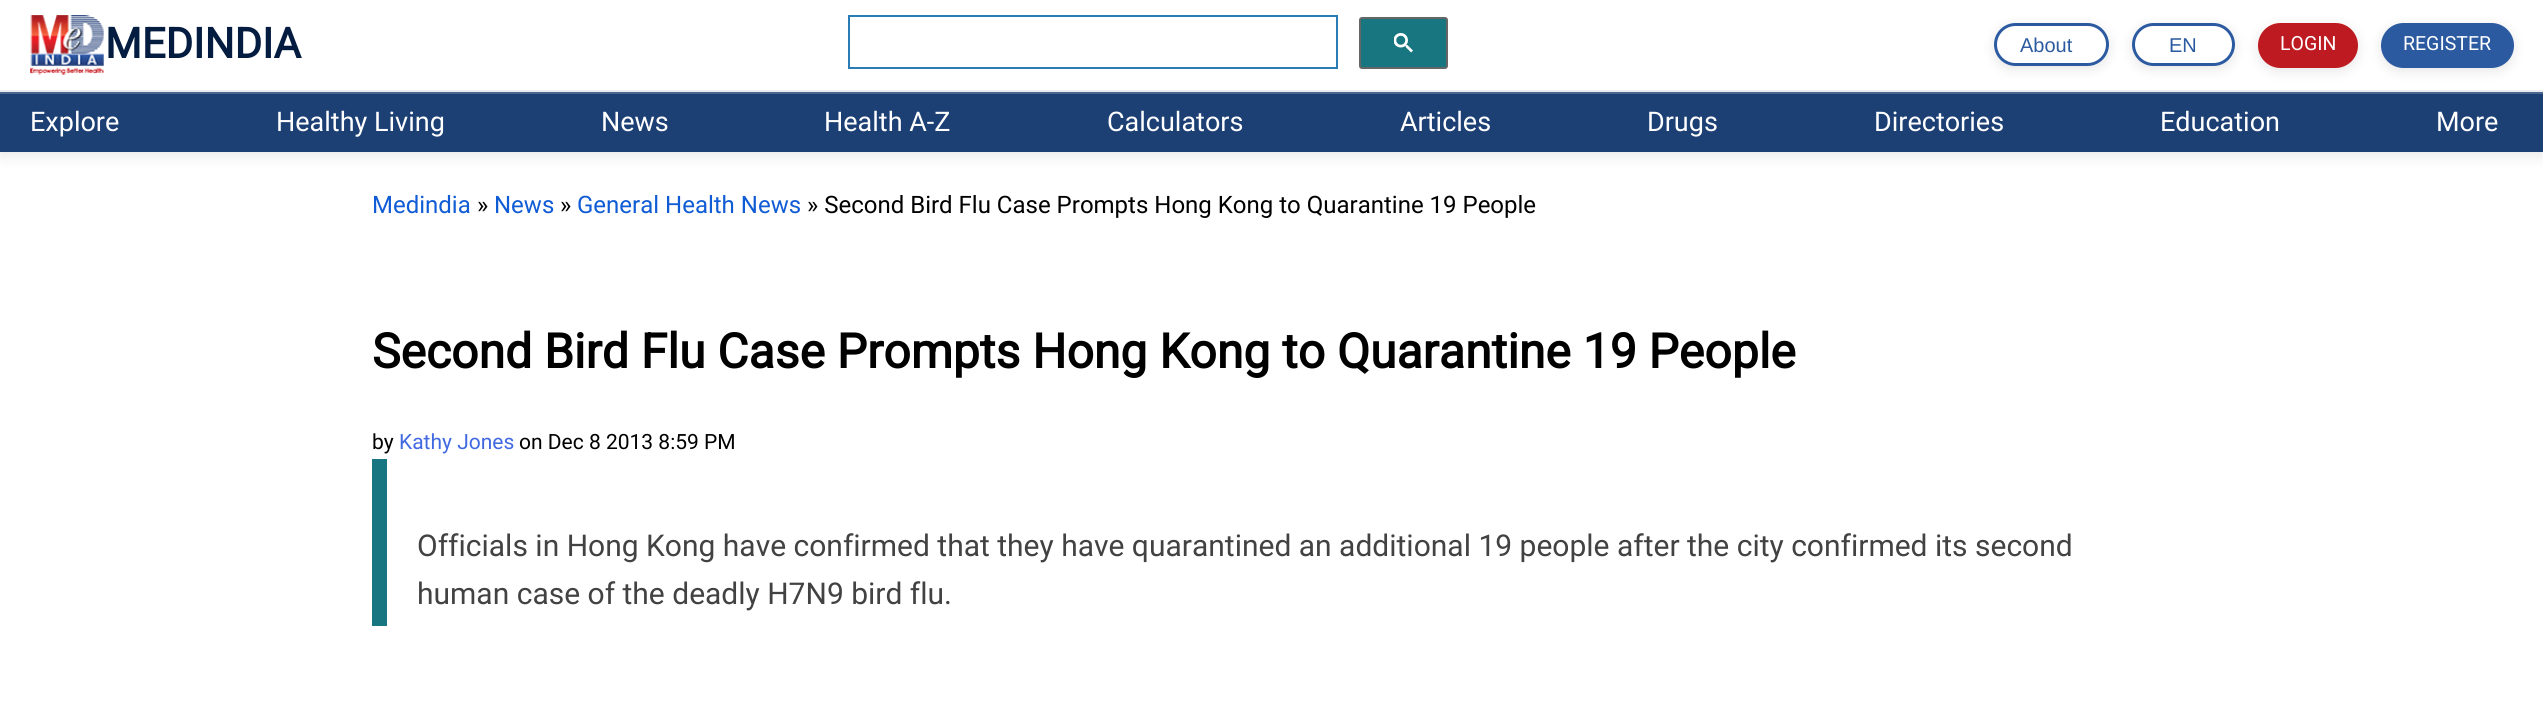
#include <cairo.h>
#include <math.h>
#include <stddef.h>


static void set_color(cairo_t *cr, unsigned color) {
    cairo_set_source_rgb(cr, (color >> 16) / 255.0, (color >> 8 & 255) / 255.0, (color & 255) / 255.0);
}

static void draw_text(cairo_t *cr, double x, double y, const char *s, const char *family, double size, int italic, int bold, unsigned color) {
    cairo_select_font_face(cr, family, italic ? CAIRO_FONT_SLANT_ITALIC : CAIRO_FONT_SLANT_NORMAL,
        bold ? CAIRO_FONT_WEIGHT_BOLD : CAIRO_FONT_WEIGHT_NORMAL);
    cairo_set_font_size(cr, size);
    set_color(cr, color);
    cairo_move_to(cr, x, y);
    cairo_show_text(cr, s);
}

static void fill_rect(cairo_t *cr, double x, double y, double w, double h, unsigned color) {
    set_color(cr, color);
    cairo_rectangle(cr, x, y, w, h);
    cairo_fill(cr);
}

static void rounded_rect(cairo_t *cr, double x, double y, double w, double h, double r) {
    cairo_new_sub_path(cr);
    cairo_arc(cr, x + w - r, y + h - r, r, 0, M_PI / 2);
    cairo_arc(cr, x + r, y + h - r, r, M_PI / 2, M_PI);
    cairo_arc(cr, x + r, y + r, r, M_PI, 1.5 * M_PI);
    cairo_arc(cr, x + w - r, y + r, r, 1.5 * M_PI, 2 * M_PI);
    cairo_close_path(cr);
}

static void draw_shadow(cairo_t *cr, double x, double y, double w, double h, double r, double blur, double alpha) {
    cairo_push_group_with_content(cr, CAIRO_CONTENT_ALPHA);
    cairo_set_operator(cr, CAIRO_OPERATOR_SOURCE);
    for (int i = 15; i >= -15 && fmin(w, h) + blur * i / 3 > 0; i -= 2) {
        double e = blur * i / 6;
        cairo_set_source_rgba(cr, 0, 0, 0, alpha * erfc((i - 1) / 8.5) / 2);
        rounded_rect(cr, x - e, y - e, w + 2 * e, h + 2 * e, fmax(0, fmin(r + e + blur * .6, fmin(w, h) / 2 + e)));
        cairo_fill(cr);
    }
    cairo_pattern_t *soft = cairo_pop_group(cr);
    cairo_mask(cr, soft);
    cairo_pattern_destroy(soft);
}

static void draw_image(cairo_t *cr, const char *path, double x, double y, double w, double h) {
    cairo_surface_t *image = cairo_image_surface_create_from_png(path);
    cairo_save(cr);
    cairo_set_source_surface(cr, image, x, y);
    cairo_rectangle(cr, x, y, w, h);
    cairo_fill(cr);
    cairo_restore(cr);
    cairo_surface_destroy(image);
}

int main(void) {
    cairo_surface_t *surface = cairo_image_surface_create(CAIRO_FORMAT_RGB24, 2543, 706);
    cairo_t *cr = cairo_create(surface);
    cairo_font_options_t *options = cairo_font_options_create();
    cairo_font_options_set_hint_metrics(options, CAIRO_HINT_METRICS_OFF);
    cairo_font_options_set_hint_style(options, CAIRO_HINT_STYLE_NONE);
    cairo_set_font_options(cr, options);
    cairo_set_miter_limit(cr, 4);
    set_color(cr, 0xFFFFFF);
    cairo_paint(cr);
    set_color(cr, 0x000000);
    draw_shadow(cr, 0, 3, 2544, 152, 0, 7.5, 0.1);
    fill_rect(cr, 0, 0, 2543, 90, 0xFFFFFF);
    fill_rect(cr, 0, 90, 2543, 2, 0xE9ECEF);
    draw_image(cr, "assets/img1.png", 30, 15, 74, 60);
    draw_text(cr, 105, 58, "MEDINDIA", "Roboto", 42, 0, 1, 0x031C40);
    cairo_rectangle(cr, 849, 16, 488, 52);
    set_color(cr, 0x2A7CB5);
    cairo_stroke(cr);
    set_color(cr, 0x187681);
    rounded_rect(cr, 1360, 18, 87, 50, 2);
    cairo_fill_preserve(cr);
    set_color(cr, 0x666666);
    cairo_stroke(cr);
    draw_image(cr, "assets/img2.png", 1394, 33, 19, 20);
    cairo_save(cr);
    cairo_set_fill_rule(cr, CAIRO_FILL_RULE_EVEN_ODD);
    cairo_new_path(cr);
    cairo_move_to(cr, 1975, 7);
    cairo_line_to(cr, 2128, 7);
    cairo_line_to(cr, 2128, 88);
    cairo_line_to(cr, 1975, 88);
    cairo_close_path(cr);
    cairo_move_to(cr, 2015.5, 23);
    cairo_line_to(cr, 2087.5, 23);
    cairo_curve_to(cr, 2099.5, 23, 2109, 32.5, 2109, 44.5);
    cairo_curve_to(cr, 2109, 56.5, 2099.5, 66, 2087.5, 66);
    cairo_line_to(cr, 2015.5, 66);
    cairo_curve_to(cr, 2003.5, 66, 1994, 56.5, 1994, 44.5);
    cairo_curve_to(cr, 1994, 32.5, 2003.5, 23, 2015.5, 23);
    cairo_close_path(cr);
    cairo_clip(cr);
    set_color(cr, 0x000000);
    draw_shadow(cr, 1994, 26, 115, 43, 21.5, 6, 0.1);
    cairo_restore(cr);
    rounded_rect(cr, 1995.5, 24.5, 112, 40, 20);
    set_color(cr, 0x2C5AA0);
    cairo_set_line_width(cr, 3);
    cairo_stroke(cr);
    draw_text(cr, 2020, 52, "About", "Liberation Sans", 20, 0, 0, 0x2C5AA0);
    cairo_save(cr);
    cairo_set_fill_rule(cr, CAIRO_FILL_RULE_EVEN_ODD);
    cairo_new_path(cr);
    cairo_move_to(cr, 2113, 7);
    cairo_line_to(cr, 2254, 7);
    cairo_line_to(cr, 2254, 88);
    cairo_line_to(cr, 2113, 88);
    cairo_close_path(cr);
    cairo_move_to(cr, 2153.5, 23);
    cairo_line_to(cr, 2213.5, 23);
    cairo_curve_to(cr, 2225.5, 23, 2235, 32.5, 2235, 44.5);
    cairo_curve_to(cr, 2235, 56.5, 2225.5, 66, 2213.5, 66);
    cairo_line_to(cr, 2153.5, 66);
    cairo_curve_to(cr, 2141.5, 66, 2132, 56.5, 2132, 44.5);
    cairo_curve_to(cr, 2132, 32.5, 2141.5, 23, 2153.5, 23);
    cairo_close_path(cr);
    cairo_clip(cr);
    set_color(cr, 0x000000);
    draw_shadow(cr, 2132, 26, 103, 43, 21.5, 6, 0.1);
    cairo_restore(cr);
    rounded_rect(cr, 2133.5, 24.5, 100, 40, 20);
    cairo_stroke(cr);
    draw_text(cr, 2169, 52, "EN", "Liberation Sans", 20, 0, 0, 0x2C5AA0);
    set_color(cr, 0x000000);
    draw_shadow(cr, 2258, 26, 100, 45, 22.5, 6, 0.1);
    set_color(cr, 0xBD1B21);
    rounded_rect(cr, 2258, 23, 100, 45, 22.5);
    cairo_fill(cr);
    draw_text(cr, 2280, 50, "LOGIN", "Roboto", 19.5, 0, 0, 0xFFFFFF);
    set_color(cr, 0x000000);
    draw_shadow(cr, 2381, 26, 133, 45, 22.5, 6, 0.1);
    set_color(cr, 0x2C5AA0);
    rounded_rect(cr, 2381, 23, 133, 45, 22.5);
    cairo_fill(cr);
    draw_text(cr, 2403, 50, "REGISTER", "Roboto", 19.5, 0, 0, 0xFFFFFF);
    fill_rect(cr, 0, 94, 2543, 58, 0x1C3F74);
    fill_rect(cr, 0, 92, 2543, 2, 0x496590);
    draw_text(cr, 30, 131, "Explore", "Roboto", 27, 0, 0, 0xFFFFFF);
    draw_text(cr, 276, 131, "Healthy Living", "Roboto", 27, 0, 0, 0xFFFFFF);
    draw_text(cr, 601, 131, "News", "Roboto", 27, 0, 0, 0xFFFFFF);
    draw_text(cr, 824, 131, "Health A-Z", "Roboto", 27, 0, 0, 0xFFFFFF);
    draw_text(cr, 1107, 131, "Calculators", "Roboto", 27, 0, 0, 0xFFFFFF);
    draw_text(cr, 1400, 131, "Articles", "Roboto", 27, 0, 0, 0xFFFFFF);
    draw_text(cr, 1647, 131, "Drugs", "Roboto", 27, 0, 0, 0xFFFFFF);
    draw_text(cr, 1874, 131, "Directories", "Roboto", 27, 0, 0, 0xFFFFFF);
    draw_text(cr, 2160, 131, "Education", "Roboto", 27, 0, 0, 0xFFFFFF);
    draw_text(cr, 2436, 131, "More", "Roboto", 27, 0, 0, 0xFFFFFF);
    draw_text(cr, 372, 213, "Medindia", "Roboto", 24, 0, 0, 0x105CD5);
    draw_text(cr, 477, 213, "»", "Roboto", 24, 0, 0, 0x000000);
    draw_text(cr, 494, 213, "News", "Roboto", 24, 0, 0, 0x105CD5);
    draw_text(cr, 560, 213, "»", "Roboto", 24, 0, 0, 0x000000);
    draw_text(cr, 577, 213, "General Health News", "Roboto", 24, 0, 0, 0x105CD5);
    draw_text(cr, 807, 213, "» Second Bird Flu Case Prompts Hong Kong to Quarantine 19 People", "Roboto", 24, 0, 0, 0x000000);
    draw_text(cr, 372, 368, "Second Bird Flu Case Prompts Hong Kong to Quarantine 19 People", "Roboto", 48, 0, 1, 0x000000);
    draw_text(cr, 372, 449, "by", "Roboto", 21, 0, 0, 0x000000);
    draw_text(cr, 399, 449, "Kathy Jones", "Roboto", 21, 0, 0, 0x4169E1);
    draw_text(cr, 519, 449, "on Dec 8 2013 8:59 PM", "Roboto", 21, 0, 0, 0x000000);
    fill_rect(cr, 372, 459, 15, 167, 0x187681);
    draw_text(cr, 417, 556, "Officials in Hong Kong have confirmed that they have quarantined an additional 19 people after the city confirmed its second", "Roboto", 30, 0, 0, 0x424242);
    draw_text(cr, 417, 604, "human case of the deadly H7N9 bird flu.", "Roboto", 30, 0, 0, 0x424242);
    cairo_surface_write_to_png(surface, "output.png");
    cairo_font_options_destroy(options);
    cairo_destroy(cr);
    cairo_surface_destroy(surface);
    return 0;
}
